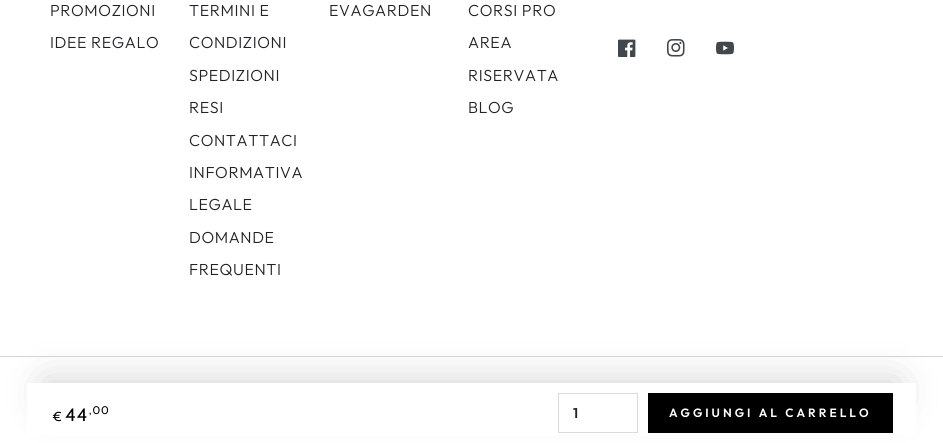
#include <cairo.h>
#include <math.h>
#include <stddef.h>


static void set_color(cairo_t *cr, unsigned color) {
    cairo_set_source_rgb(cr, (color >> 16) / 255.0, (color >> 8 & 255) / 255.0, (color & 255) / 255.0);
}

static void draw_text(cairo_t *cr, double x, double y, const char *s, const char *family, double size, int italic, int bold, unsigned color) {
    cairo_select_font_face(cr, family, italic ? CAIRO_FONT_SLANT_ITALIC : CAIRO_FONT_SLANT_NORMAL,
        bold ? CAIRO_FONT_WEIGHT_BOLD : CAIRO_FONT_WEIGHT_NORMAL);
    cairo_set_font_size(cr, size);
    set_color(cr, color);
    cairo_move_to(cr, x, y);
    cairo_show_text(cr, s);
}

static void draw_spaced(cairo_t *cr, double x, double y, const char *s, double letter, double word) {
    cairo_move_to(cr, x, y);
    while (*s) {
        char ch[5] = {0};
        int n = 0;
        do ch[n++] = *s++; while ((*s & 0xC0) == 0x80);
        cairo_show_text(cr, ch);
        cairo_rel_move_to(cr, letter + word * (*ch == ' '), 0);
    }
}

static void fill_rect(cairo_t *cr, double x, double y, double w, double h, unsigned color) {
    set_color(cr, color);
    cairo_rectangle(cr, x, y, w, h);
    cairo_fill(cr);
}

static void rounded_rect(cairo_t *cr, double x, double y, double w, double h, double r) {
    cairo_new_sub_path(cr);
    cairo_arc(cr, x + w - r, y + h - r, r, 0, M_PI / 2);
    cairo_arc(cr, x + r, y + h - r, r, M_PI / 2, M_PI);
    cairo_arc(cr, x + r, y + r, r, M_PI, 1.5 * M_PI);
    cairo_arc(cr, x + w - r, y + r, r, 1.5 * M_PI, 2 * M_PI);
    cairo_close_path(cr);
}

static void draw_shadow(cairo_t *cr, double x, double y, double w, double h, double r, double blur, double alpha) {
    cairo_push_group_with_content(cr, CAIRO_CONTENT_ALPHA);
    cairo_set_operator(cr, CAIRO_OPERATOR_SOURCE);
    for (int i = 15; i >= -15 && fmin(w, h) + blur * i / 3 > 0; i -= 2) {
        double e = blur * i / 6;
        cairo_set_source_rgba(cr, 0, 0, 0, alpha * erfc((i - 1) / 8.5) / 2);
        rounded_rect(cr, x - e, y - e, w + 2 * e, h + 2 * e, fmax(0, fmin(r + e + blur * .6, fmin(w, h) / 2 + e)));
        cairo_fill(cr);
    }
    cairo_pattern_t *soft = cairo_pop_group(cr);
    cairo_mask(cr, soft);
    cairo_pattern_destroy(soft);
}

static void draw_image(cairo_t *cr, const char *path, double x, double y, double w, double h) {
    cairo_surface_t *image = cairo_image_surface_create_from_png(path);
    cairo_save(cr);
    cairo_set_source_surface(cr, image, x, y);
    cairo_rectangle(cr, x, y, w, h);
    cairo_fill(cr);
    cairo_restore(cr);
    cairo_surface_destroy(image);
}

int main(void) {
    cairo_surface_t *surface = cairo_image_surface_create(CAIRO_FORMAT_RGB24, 943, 443);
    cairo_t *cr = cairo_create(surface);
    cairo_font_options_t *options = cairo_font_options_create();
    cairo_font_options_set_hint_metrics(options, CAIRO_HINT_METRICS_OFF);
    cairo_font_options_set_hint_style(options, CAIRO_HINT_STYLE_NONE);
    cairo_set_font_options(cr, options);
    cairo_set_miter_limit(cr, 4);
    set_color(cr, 0xFFFFFF);
    cairo_paint(cr);
    cairo_select_font_face(cr, "Outfit Light", CAIRO_FONT_SLANT_NORMAL, CAIRO_FONT_WEIGHT_NORMAL);
    cairo_set_font_size(cr, 16);
    set_color(cr, 0x212326);
    draw_spaced(cr, 50, 16, "PROMOZIONI", 0.6, 0);
    draw_spaced(cr, 50, 48, "IDEE REGALO", 0.6, 0);
    draw_spaced(cr, 189, 16, "TERMINI E", 0.6, 0);
    draw_spaced(cr, 189, 48, "CONDIZIONI", 0.6, 0);
    draw_spaced(cr, 189, 81, "SPEDIZIONI", 0.6, 0);
    draw_spaced(cr, 189, 113, "RESI", 0.6, 0);
    draw_spaced(cr, 189, 146, "CONTATTACI", 0.6, 0);
    draw_spaced(cr, 189, 178, "INFORMATIVA", 0.6, 0);
    draw_spaced(cr, 189, 210, "LEGALE", 0.6, 0);
    draw_spaced(cr, 189, 243, "DOMANDE", 0.6, 0);
    draw_spaced(cr, 189, 275, "FREQUENTI", 0.6, 0);
    draw_spaced(cr, 329, 16, "EVAGARDEN", 0.6, 0);
    draw_spaced(cr, 468, 16, "CORSI PRO", 0.6, 0);
    draw_spaced(cr, 468, 48, "AREA", 0.6, 0);
    draw_spaced(cr, 468, 81, "RISERVATA", 0.6, 0);
    draw_spaced(cr, 468, 113, "BLOG", 0.6, 0);
    draw_image(cr, "assets/img1.png", 618, 39, 18, 18);
    draw_image(cr, "assets/img2.png", 667, 39, 18, 18);
    draw_image(cr, "assets/img3.png", 716, 41, 18, 14);
    fill_rect(cr, 0, 356, 943, 1, 0xD2D5D9);
    set_color(cr, 0x000000);
    draw_shadow(cr, 47, 383, 849, 20, 10, 20, 0.2);
    fill_rect(cr, 27, 383, 889, 52, 0xFFFFFF);
    cairo_select_font_face(cr, "Cabin", CAIRO_FONT_SLANT_NORMAL, CAIRO_FONT_WEIGHT_NORMAL);
    cairo_set_font_size(cr, 13);
    set_color(cr, 0x000000);
    draw_spaced(cr, 53, 421, "€", 1, 0);
    cairo_set_font_size(cr, 18);
    draw_spaced(cr, 65, 421, "44", 1, 0);
    cairo_set_font_size(cr, 11);
    draw_spaced(cr, 89, 414, ",00", 1, 0);
    cairo_rectangle(cr, 558.5, 393.5, 79, 39);
    set_color(cr, 0xDFD9D9);
    cairo_set_line_width(cr, 1);
    cairo_stroke(cr);
    draw_text(cr, 573, 418, "1", "Outfit SemiBold", 14, 0, 0, 0x212326);
    fill_rect(cr, 648, 393, 245, 40, 0x000000);
    cairo_set_font_size(cr, 12);
    set_color(cr, 0xFFFFFF);
    draw_spaced(cr, 669, 417, "AGGIUNGI AL CARRELLO", 3, 0);
    cairo_surface_write_to_png(surface, "output.png");
    cairo_font_options_destroy(options);
    cairo_destroy(cr);
    cairo_surface_destroy(surface);
    return 0;
}
